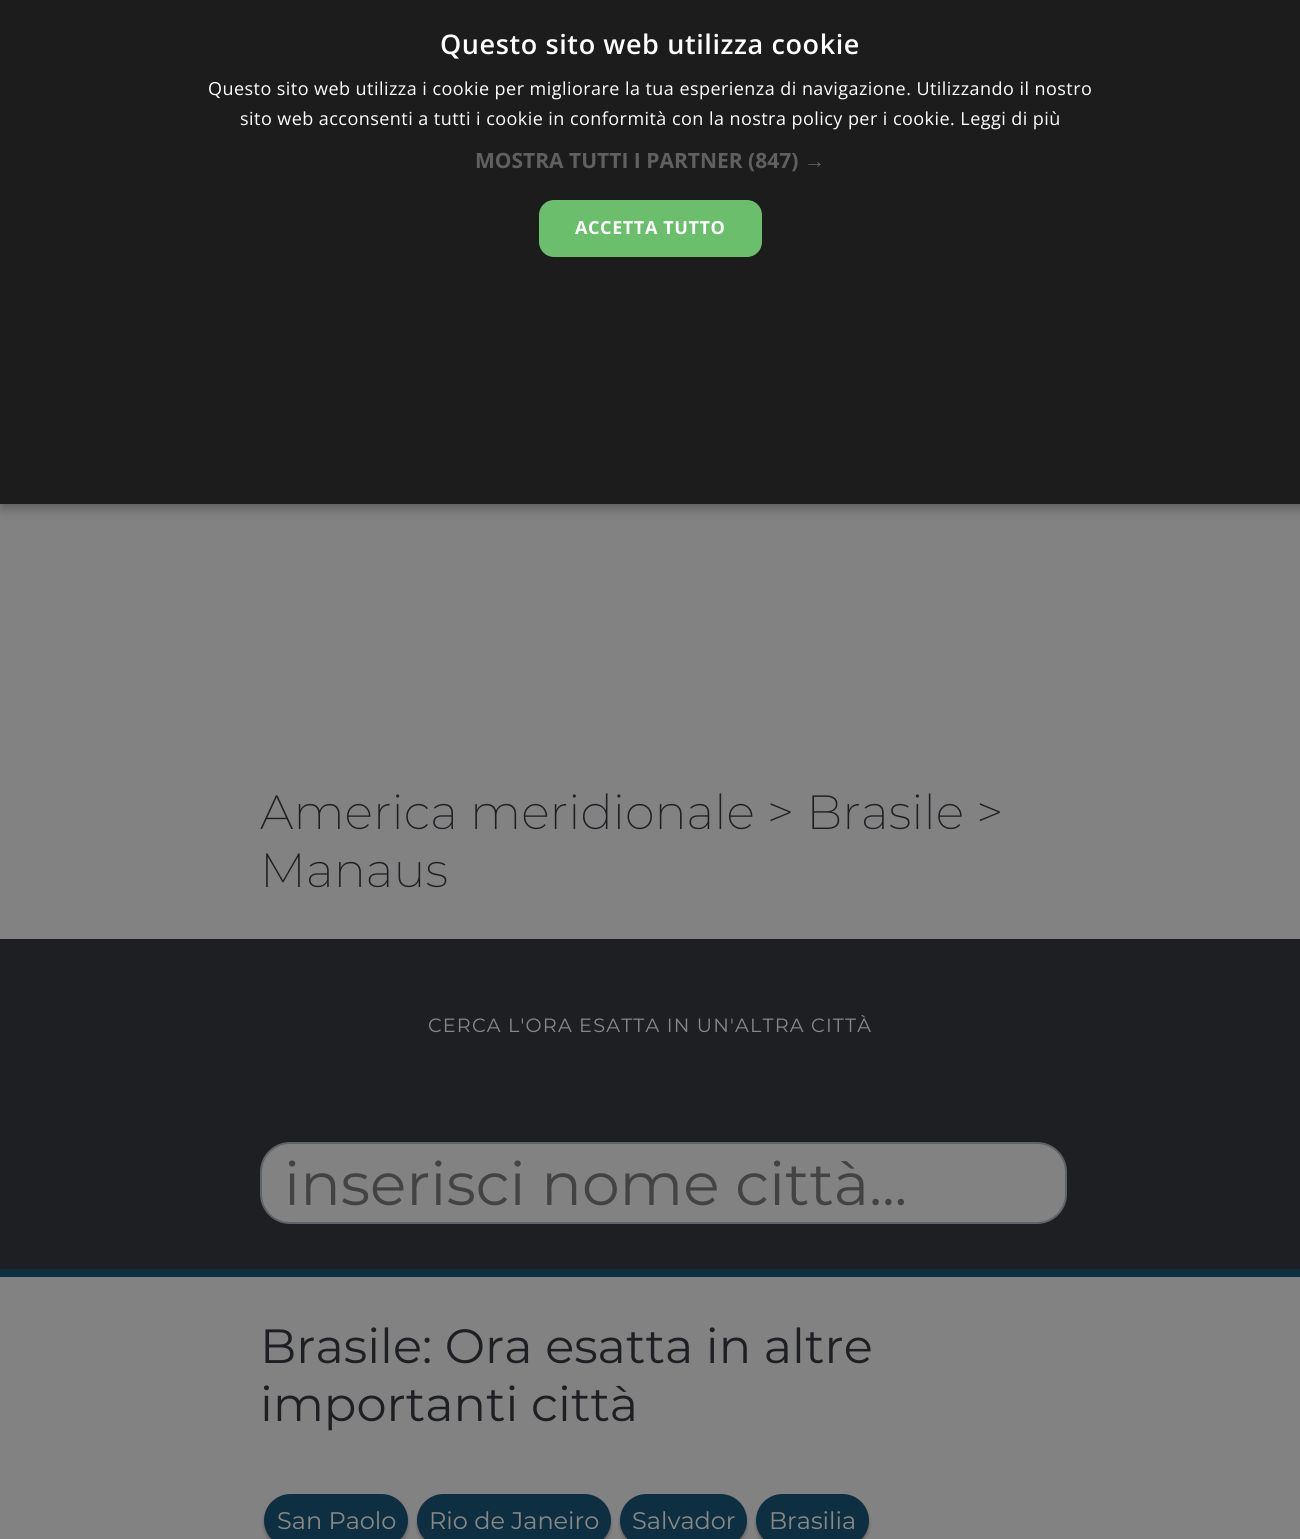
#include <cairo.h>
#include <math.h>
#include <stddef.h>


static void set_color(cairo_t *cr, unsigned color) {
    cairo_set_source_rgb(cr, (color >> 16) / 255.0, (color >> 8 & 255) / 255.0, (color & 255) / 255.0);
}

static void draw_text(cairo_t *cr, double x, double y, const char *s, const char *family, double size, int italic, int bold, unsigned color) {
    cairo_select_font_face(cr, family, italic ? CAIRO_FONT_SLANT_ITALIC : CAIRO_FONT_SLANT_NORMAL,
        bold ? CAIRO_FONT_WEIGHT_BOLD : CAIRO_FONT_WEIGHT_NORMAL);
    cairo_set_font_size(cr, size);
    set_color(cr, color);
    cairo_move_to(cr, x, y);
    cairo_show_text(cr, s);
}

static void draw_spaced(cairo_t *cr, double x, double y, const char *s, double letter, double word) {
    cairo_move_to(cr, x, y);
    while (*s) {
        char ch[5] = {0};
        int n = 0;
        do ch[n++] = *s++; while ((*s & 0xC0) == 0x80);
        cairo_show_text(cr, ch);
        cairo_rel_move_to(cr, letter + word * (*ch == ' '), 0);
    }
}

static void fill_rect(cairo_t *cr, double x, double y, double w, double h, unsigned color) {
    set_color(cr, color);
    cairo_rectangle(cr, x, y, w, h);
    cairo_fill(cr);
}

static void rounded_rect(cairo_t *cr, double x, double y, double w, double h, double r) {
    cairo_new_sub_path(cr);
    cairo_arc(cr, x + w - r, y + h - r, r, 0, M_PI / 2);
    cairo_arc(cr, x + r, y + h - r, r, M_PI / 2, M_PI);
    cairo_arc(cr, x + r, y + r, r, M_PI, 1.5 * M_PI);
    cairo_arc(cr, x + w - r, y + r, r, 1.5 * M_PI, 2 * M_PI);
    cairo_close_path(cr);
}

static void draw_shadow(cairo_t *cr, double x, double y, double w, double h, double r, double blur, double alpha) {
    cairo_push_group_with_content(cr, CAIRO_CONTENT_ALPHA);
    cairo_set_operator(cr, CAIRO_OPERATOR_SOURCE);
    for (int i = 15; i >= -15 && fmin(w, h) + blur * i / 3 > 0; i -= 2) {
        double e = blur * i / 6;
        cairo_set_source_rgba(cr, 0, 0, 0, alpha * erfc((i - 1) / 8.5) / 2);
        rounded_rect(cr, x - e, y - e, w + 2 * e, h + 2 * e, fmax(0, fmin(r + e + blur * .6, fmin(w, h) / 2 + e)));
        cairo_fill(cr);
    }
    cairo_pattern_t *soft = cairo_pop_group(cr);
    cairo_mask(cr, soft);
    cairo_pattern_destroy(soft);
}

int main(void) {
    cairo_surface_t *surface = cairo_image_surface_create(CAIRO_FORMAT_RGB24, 1300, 1539);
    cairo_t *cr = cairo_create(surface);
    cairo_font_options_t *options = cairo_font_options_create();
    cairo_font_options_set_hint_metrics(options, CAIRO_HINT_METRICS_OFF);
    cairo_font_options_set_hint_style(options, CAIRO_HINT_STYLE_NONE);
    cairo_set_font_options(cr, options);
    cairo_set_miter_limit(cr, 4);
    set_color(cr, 0x828283);
    cairo_paint(cr);
    set_color(cr, 0x000000);
    draw_shadow(cr, 2, 3, 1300, 504, 0, 6, 0.35);
    fill_rect(cr, 0, 0, 1300, 504, 0x1C1C1C);
    cairo_select_font_face(cr, "Open Sans SemiBold", CAIRO_FONT_SLANT_NORMAL, CAIRO_FONT_WEIGHT_NORMAL);
    cairo_set_font_size(cr, 27);
    set_color(cr, 0xFFFFFF);
    draw_spaced(cr, 440, 54, "Questo sito web utilizza cookie", 0.6, 0);
    cairo_select_font_face(cr, "Open Sans", CAIRO_FONT_SLANT_NORMAL, CAIRO_FONT_WEIGHT_NORMAL);
    cairo_set_font_size(cr, 18);
    draw_spaced(cr, 208, 95, "Questo sito web utilizza i cookie per migliorare la tua esperienza di navigazione. Utilizzando il nostro", 0.45, 0);
    draw_spaced(cr, 240, 125, "sito web acconsenti a tutti i cookie in conformità con la nostra policy per i cookie. Leggi di più", 0.45, 0);
    draw_text(cr, 475, 168, "MOSTRA TUTTI I PARTNER (847)", "Open Sans", 21, 0, 1, 0x606060);
    draw_text(cr, 804, 168, "→", "Liberation Sans", 21, 0, 1, 0x606060);
    set_color(cr, 0x6BBE6B);
    rounded_rect(cr, 539, 200, 223, 57, 15);
    cairo_fill(cr);
    cairo_select_font_face(cr, "Open Sans", CAIRO_FONT_SLANT_NORMAL, CAIRO_FONT_WEIGHT_BOLD);
    cairo_set_font_size(cr, 18);
    set_color(cr, 0xFFFFFF);
    draw_spaced(cr, 575, 234, "ACCETTA TUTTO", 0.6, 0);
    draw_text(cr, 260, 829, "America meridionale > Brasile >", "Montserrat ExtraLight", 48, 0, 0, 0x1D1F23);
    draw_text(cr, 260, 887, "Manaus", "Montserrat ExtraLight", 48, 0, 0, 0x1D1F23);
    fill_rect(cr, 0, 939, 1300, 330, 0x1D1F23);
    fill_rect(cr, 0, 1269, 1300, 8, 0x0D2F41);
    cairo_select_font_face(cr, "Montserrat", CAIRO_FONT_SLANT_NORMAL, CAIRO_FONT_WEIGHT_NORMAL);
    cairo_set_font_size(cr, 19.2);
    set_color(cr, 0x888888);
    draw_spaced(cr, 428, 1032, "CERCA L'ORA ESATTA IN UN'ALTRA CITTÀ", 1.2, 0);
    set_color(cr, 0x828283);
    rounded_rect(cr, 261, 1143, 805, 80, 29);
    cairo_fill_preserve(cr);
    set_color(cr, 0x5E6269);
    cairo_stroke(cr);
    draw_text(cr, 284, 1205, "inserisci nome città...", "Montserrat", 60, 0, 0, 0x434343);
    draw_text(cr, 260, 1363, "Brasile: Ora esatta in altre", "Montserrat", 48, 0, 0, 0x1D1F23);
    draw_text(cr, 260, 1421, "importanti città", "Montserrat", 48, 0, 0, 0x1D1F23);
    set_color(cr, 0x090909);
    draw_shadow(cr, 264, 1497, 144, 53, 26.5, 1.5, 0.3);
    set_color(cr, 0x0D2F41);
    rounded_rect(cr, 264, 1494, 144, 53, 26.5);
    cairo_fill(cr);
    draw_text(cr, 277, 1529, "San Paolo", "Montserrat", 24, 0, 0, 0x888888);
    set_color(cr, 0x090909);
    draw_shadow(cr, 417, 1497, 194, 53, 26.5, 1.5, 0.3);
    set_color(cr, 0x0D2F41);
    rounded_rect(cr, 417, 1494, 194, 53, 26.5);
    cairo_fill(cr);
    draw_text(cr, 429, 1529, "Rio de Janeiro", "Montserrat", 24, 0, 0, 0x888888);
    set_color(cr, 0x090909);
    draw_shadow(cr, 620, 1497, 127, 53, 26.5, 1.5, 0.3);
    set_color(cr, 0x0D2F41);
    rounded_rect(cr, 620, 1494, 127, 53, 26.5);
    cairo_fill(cr);
    draw_text(cr, 632, 1529, "Salvador", "Montserrat", 24, 0, 0, 0x888888);
    set_color(cr, 0x090909);
    draw_shadow(cr, 756, 1497, 113, 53, 26.5, 1.5, 0.3);
    set_color(cr, 0x0D2F41);
    rounded_rect(cr, 756, 1494, 113, 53, 26.5);
    cairo_fill(cr);
    draw_text(cr, 769, 1529, "Brasilia", "Montserrat", 24, 0, 0, 0x888888);
    cairo_surface_write_to_png(surface, "output.png");
    cairo_font_options_destroy(options);
    cairo_destroy(cr);
    cairo_surface_destroy(surface);
    return 0;
}
